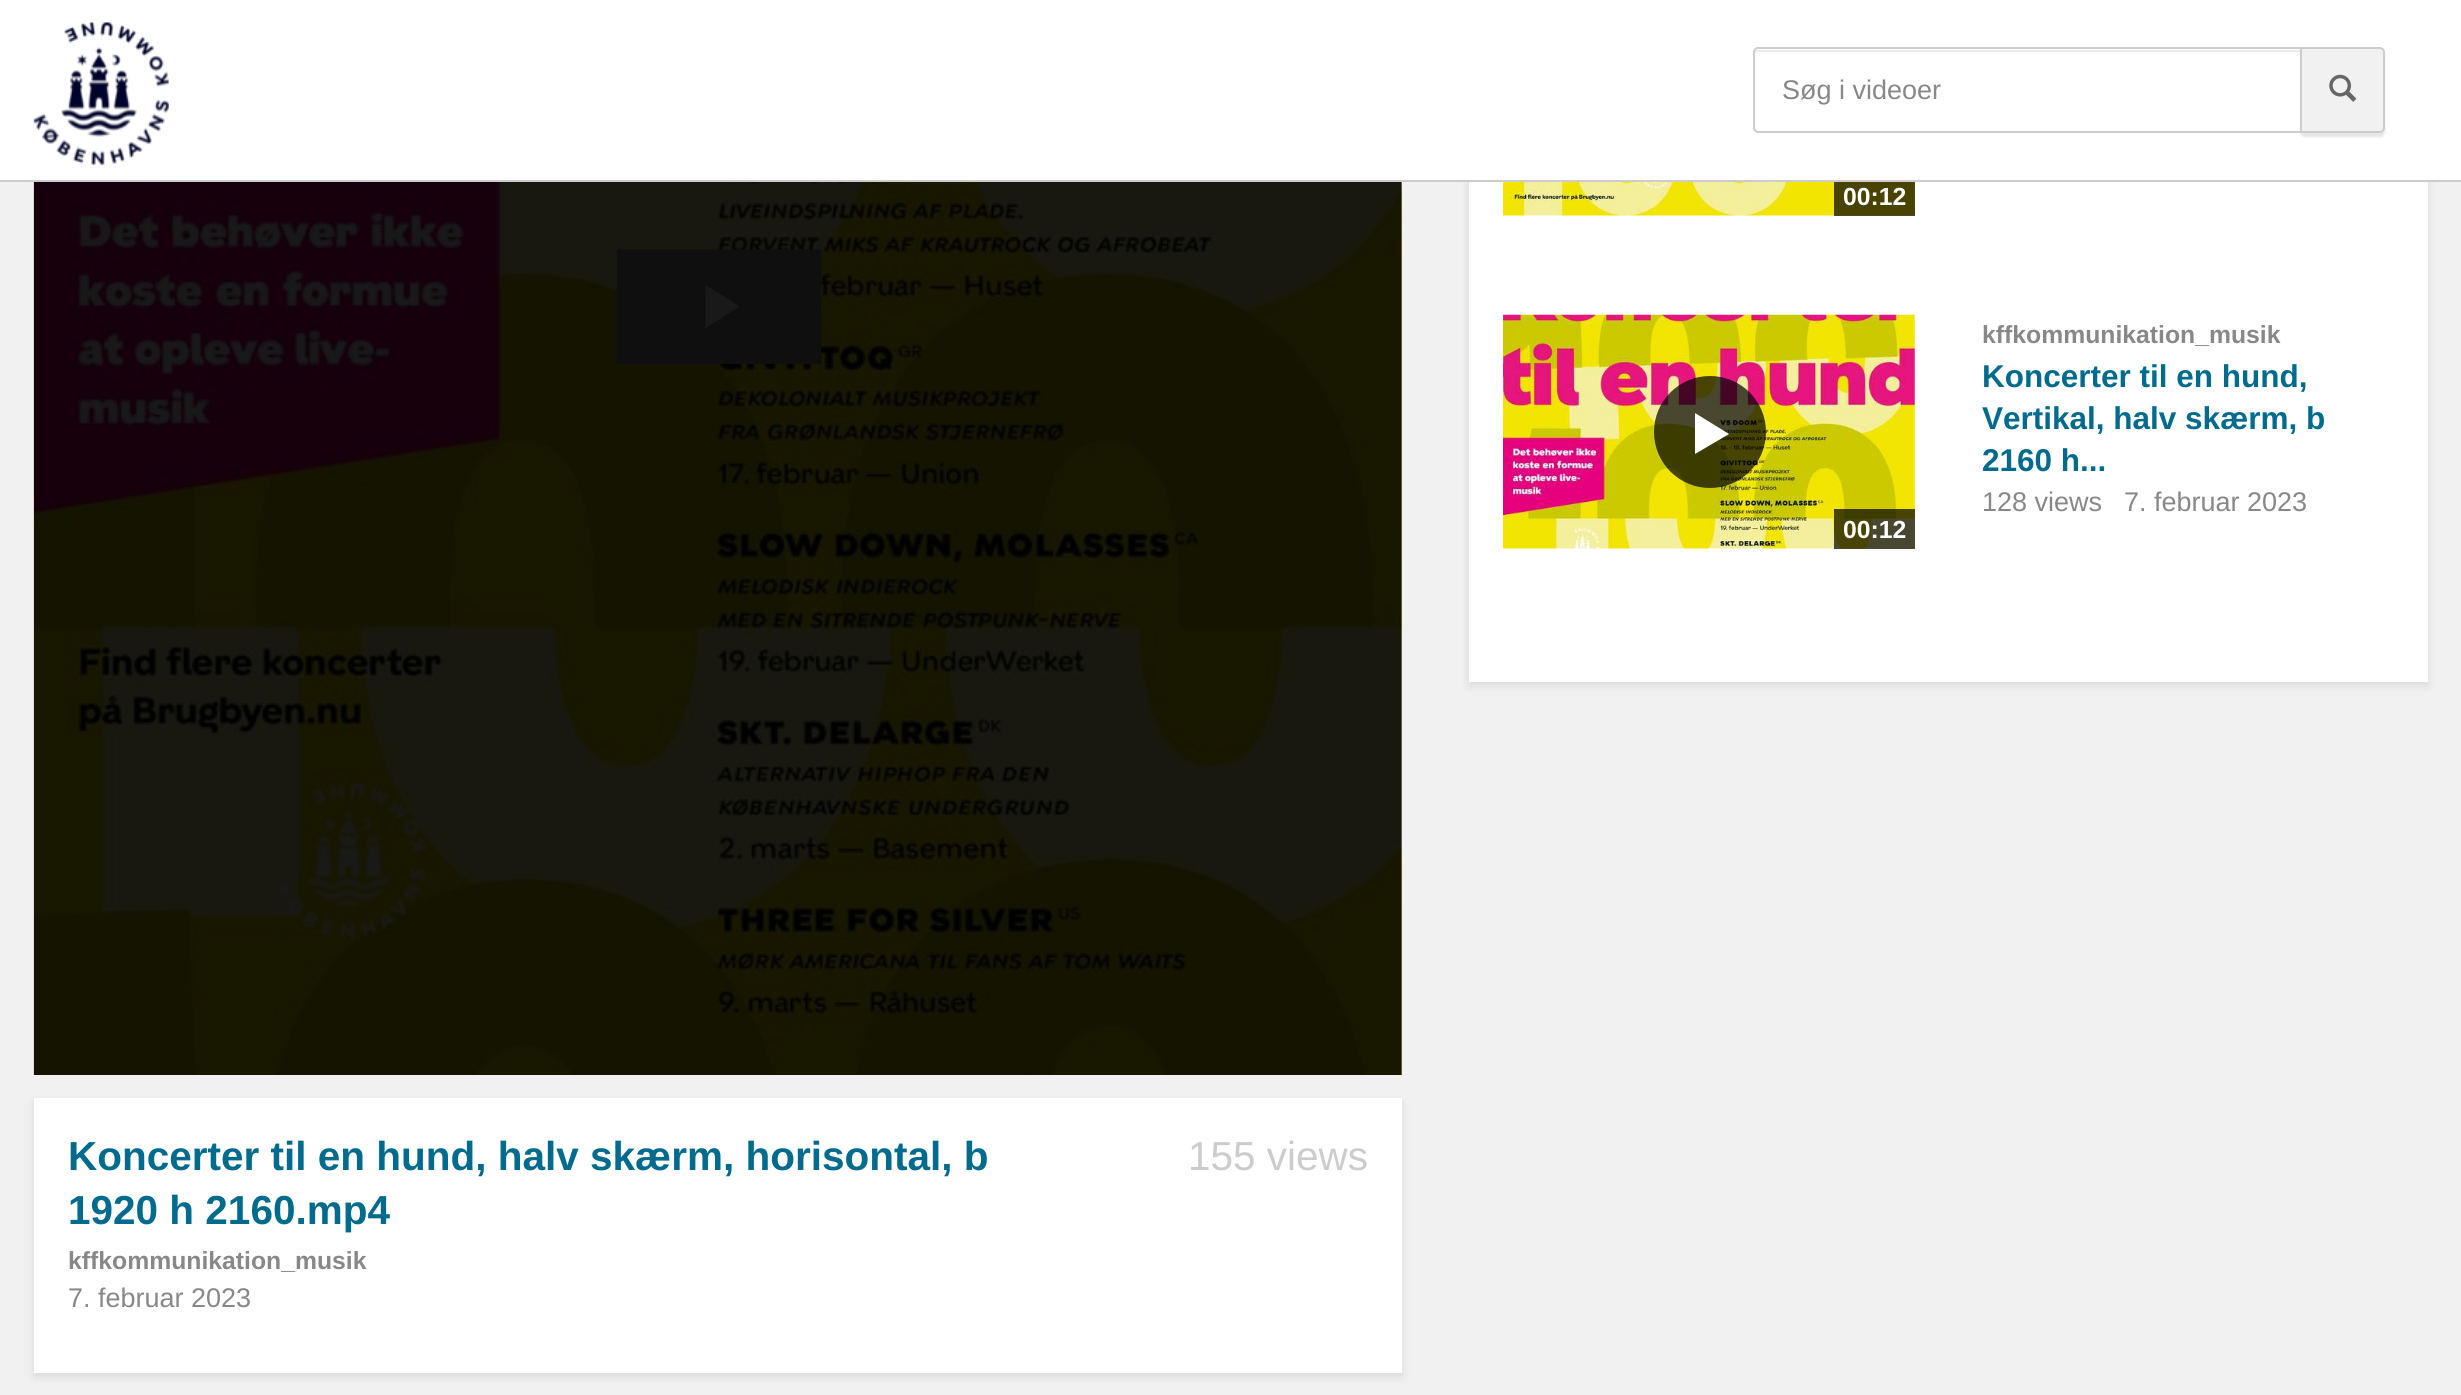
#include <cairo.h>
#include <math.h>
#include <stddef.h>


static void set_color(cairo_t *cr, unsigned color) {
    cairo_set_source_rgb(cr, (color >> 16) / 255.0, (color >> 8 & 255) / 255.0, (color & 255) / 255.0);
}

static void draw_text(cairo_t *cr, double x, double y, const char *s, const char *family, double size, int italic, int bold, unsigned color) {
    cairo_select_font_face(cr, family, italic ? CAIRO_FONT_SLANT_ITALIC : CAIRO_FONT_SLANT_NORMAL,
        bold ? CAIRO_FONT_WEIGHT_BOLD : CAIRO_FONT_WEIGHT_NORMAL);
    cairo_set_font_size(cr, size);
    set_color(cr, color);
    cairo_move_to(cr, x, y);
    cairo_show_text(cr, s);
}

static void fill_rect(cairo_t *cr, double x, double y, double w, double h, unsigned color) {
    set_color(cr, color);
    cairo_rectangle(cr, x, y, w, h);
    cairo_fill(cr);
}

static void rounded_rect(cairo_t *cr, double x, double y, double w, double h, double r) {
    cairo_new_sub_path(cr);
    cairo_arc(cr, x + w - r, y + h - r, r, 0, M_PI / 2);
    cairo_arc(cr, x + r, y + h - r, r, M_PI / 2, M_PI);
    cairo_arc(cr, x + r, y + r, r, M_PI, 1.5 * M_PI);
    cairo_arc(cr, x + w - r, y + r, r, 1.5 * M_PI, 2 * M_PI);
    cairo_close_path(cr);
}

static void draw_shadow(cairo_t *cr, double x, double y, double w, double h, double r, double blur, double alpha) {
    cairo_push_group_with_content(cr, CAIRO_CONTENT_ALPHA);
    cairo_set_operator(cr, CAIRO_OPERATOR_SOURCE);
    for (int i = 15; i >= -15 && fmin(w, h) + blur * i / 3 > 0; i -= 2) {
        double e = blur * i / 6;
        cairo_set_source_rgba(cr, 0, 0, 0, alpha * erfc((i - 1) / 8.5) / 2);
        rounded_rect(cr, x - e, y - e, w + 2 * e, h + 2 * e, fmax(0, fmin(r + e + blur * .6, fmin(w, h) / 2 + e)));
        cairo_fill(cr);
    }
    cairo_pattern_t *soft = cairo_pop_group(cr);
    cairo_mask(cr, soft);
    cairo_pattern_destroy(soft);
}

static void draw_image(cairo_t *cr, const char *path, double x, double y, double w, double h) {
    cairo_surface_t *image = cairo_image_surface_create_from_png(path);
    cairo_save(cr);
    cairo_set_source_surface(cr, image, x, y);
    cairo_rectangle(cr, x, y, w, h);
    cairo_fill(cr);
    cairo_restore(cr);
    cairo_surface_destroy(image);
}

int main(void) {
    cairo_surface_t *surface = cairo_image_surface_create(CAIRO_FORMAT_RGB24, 2461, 1395);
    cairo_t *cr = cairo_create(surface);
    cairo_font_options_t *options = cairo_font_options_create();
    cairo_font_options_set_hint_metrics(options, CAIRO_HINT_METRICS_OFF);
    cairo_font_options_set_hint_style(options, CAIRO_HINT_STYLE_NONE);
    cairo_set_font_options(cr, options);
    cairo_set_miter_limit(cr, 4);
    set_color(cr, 0xF1F1F1);
    cairo_paint(cr);
    set_color(cr, 0x000000);
    draw_shadow(cr, 1469, -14, 959, 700, 0, 4.5, 0.1);
    fill_rect(cr, 0, 0, 2461, 180, 0xFFFFFF);
    fill_rect(cr, 0, 180, 2461, 2, 0xCCCCCC);
    draw_image(cr, "assets/img1.png", 33, 22, 136, 143);
    set_color(cr, 0x000000);
    draw_shadow(cr, 2300, 52, 85, 85, 5, 1, 0.1);
    set_color(cr, 0xF1F1F1);
    cairo_new_path(cr);
    cairo_move_to(cr, 2301, 48);
    cairo_line_to(cr, 2380, 48);
    cairo_curve_to(cr, 2382, 48, 2384, 50, 2384, 52);
    cairo_line_to(cr, 2384, 128);
    cairo_curve_to(cr, 2384, 130, 2382, 132, 2380, 132);
    cairo_line_to(cr, 2301, 132);
    cairo_close_path(cr);
    cairo_fill_preserve(cr);
    set_color(cr, 0xCCCCCC);
    cairo_stroke(cr);
    set_color(cr, 0xFFFFFF);
    cairo_new_path(cr);
    cairo_move_to(cr, 1758, 47);
    cairo_line_to(cr, 2302, 47);
    cairo_line_to(cr, 2302, 133);
    cairo_line_to(cr, 1758, 133);
    cairo_curve_to(cr, 1755, 133, 1753, 131, 1753, 128);
    cairo_line_to(cr, 1753, 52);
    cairo_curve_to(cr, 1753, 49, 1755, 47, 1758, 47);
    cairo_close_path(cr);
    cairo_fill(cr);
    set_color(cr, 0xECECEC);
    cairo_new_path(cr);
    cairo_move_to(cr, 1757, 52);
    cairo_line_to(cr, 2300, 52);
    cairo_line_to(cr, 2300, 50);
    cairo_line_to(cr, 1757, 50);
    cairo_line_to(cr, 1755, 51);
    cairo_line_to(cr, 1755, 54);
    cairo_curve_to(cr, 1755, 53, 1756, 52, 1757, 52);
    cairo_close_path(cr);
    cairo_fill(cr);
    cairo_new_path(cr);
    cairo_move_to(cr, 1758, 48);
    cairo_line_to(cr, 2301, 48);
    cairo_line_to(cr, 2301, 132);
    cairo_line_to(cr, 1758, 132);
    cairo_curve_to(cr, 1756, 132, 1754, 130, 1754, 128);
    cairo_line_to(cr, 1754, 52);
    cairo_curve_to(cr, 1754, 50, 1756, 48, 1758, 48);
    cairo_close_path(cr);
    set_color(cr, 0xCCCCCC);
    cairo_stroke(cr);
    draw_text(cr, 1782, 99, "Søg i videoer", "Liberation Sans", 27, 0, 0, 0x888888);
    draw_image(cr, "assets/img2.png", 2329, 74, 28, 28);
    fill_rect(cr, 1469, 182, 959, 500, 0xFFFFFF);
    draw_image(cr, "assets/img3.png", 1503, 182, 412, 34);
    cairo_set_source_rgba(cr, 0, 0, 0, 0.7);
    cairo_rectangle(cr, 1834, 182, 81, 34);
    cairo_fill(cr);
    draw_text(cr, 1843, 205, "00:12", "Liberation Sans", 24.75, 0, 1, 0xFFFFFF);
    draw_text(cr, 1982, 343, "kffkommunikation_musik", "Liberation Sans", 24.75, 0, 1, 0x888888);
    draw_text(cr, 1982, 387, "Koncerter til en hund,", "Liberation Sans", 31.5, 0, 1, 0x006B8C);
    draw_text(cr, 1982, 429, "Vertikal, halv skærm, b", "Liberation Sans", 31.5, 0, 1, 0x006B8C);
    draw_text(cr, 1982, 471, "2160 h...", "Liberation Sans", 31.5, 0, 1, 0x006B8C);
    draw_text(cr, 1982, 511, "128 views", "Liberation Sans", 27, 0, 0, 0x888888);
    draw_text(cr, 2124, 511, "7. februar 2023", "Liberation Sans", 27, 0, 0, 0x888888);
    draw_image(cr, "assets/img4.png", 1503, 314, 412, 235);
    cairo_set_source_rgba(cr, 0, 0, 0, 0.7);
    cairo_arc(cr, 1710, 432, 56, 0, 2 * M_PI);
    cairo_fill(cr);
    set_color(cr, 0xFFFFFF);
    cairo_new_path(cr);
    cairo_move_to(cr, 1695, 454);
    cairo_line_to(cr, 1729, 434);
    cairo_line_to(cr, 1695, 413);
    cairo_close_path(cr);
    cairo_fill(cr);
    cairo_set_source_rgba(cr, 0, 0, 0, 0.7);
    cairo_rectangle(cr, 1834, 509, 81, 40);
    cairo_fill(cr);
    draw_text(cr, 1843, 538, "00:12", "Liberation Sans", 24.75, 0, 1, 0xFFFFFF);
    draw_image(cr, "assets/img5.png", 33, 182, 1369, 893);
    set_color(cr, 0x000000);
    draw_shadow(cr, 34, 1103, 1368, 274, 0, 4.5, 0.1);
    fill_rect(cr, 34, 1098, 1368, 275, 0xFFFFFF);
    draw_text(cr, 68, 1170, "Koncerter til en hund, halv skærm, horisontal, b", "Liberation Sans", 40.5, 0, 1, 0x006B8C);
    draw_text(cr, 68, 1224, "1920 h 2160.mp4", "Liberation Sans", 40.5, 0, 1, 0x006B8C);
    draw_text(cr, 68, 1269, "kffkommunikation_musik", "Liberation Sans", 24.75, 0, 1, 0x888888);
    draw_text(cr, 1188, 1170, "155 views", "Liberation Sans", 40.5, 0, 0, 0xCCCCCC);
    draw_text(cr, 68, 1307, "7. februar 2023", "Liberation Sans", 27, 0, 0, 0x888888);
    cairo_surface_write_to_png(surface, "output.png");
    cairo_font_options_destroy(options);
    cairo_destroy(cr);
    cairo_surface_destroy(surface);
    return 0;
}
